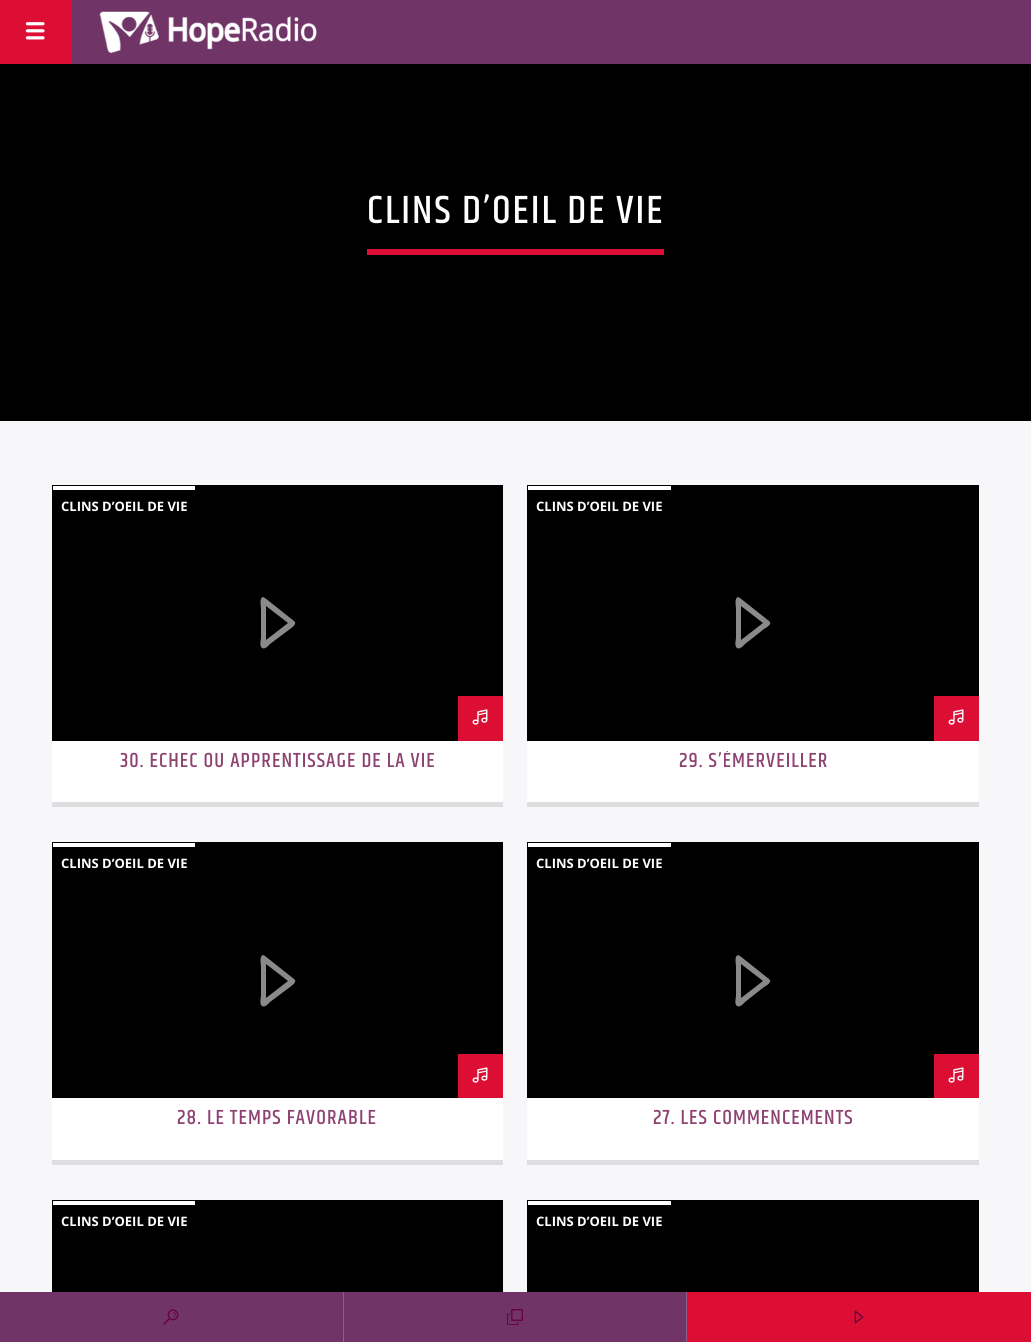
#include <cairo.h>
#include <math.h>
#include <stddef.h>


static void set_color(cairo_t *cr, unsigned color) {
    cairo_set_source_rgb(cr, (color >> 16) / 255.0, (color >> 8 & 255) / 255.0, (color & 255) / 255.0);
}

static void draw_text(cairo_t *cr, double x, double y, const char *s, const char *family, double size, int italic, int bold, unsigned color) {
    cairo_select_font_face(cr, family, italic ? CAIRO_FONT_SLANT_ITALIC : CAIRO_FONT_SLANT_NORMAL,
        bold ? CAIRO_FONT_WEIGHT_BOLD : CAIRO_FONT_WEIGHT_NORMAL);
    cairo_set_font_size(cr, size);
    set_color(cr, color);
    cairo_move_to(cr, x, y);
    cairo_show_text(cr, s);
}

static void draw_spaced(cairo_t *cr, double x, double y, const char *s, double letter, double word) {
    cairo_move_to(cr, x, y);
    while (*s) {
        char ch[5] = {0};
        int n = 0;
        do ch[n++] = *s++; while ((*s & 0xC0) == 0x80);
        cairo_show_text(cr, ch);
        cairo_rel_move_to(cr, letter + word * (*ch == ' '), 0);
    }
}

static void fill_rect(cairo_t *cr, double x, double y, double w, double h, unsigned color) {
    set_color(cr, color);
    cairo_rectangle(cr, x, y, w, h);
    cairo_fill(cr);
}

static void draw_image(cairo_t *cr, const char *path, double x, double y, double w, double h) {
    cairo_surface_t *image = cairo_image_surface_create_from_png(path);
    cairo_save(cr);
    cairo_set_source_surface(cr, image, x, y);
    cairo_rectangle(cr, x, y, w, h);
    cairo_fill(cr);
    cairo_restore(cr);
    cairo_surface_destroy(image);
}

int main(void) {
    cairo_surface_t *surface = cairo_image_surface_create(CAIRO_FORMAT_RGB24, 1031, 1342);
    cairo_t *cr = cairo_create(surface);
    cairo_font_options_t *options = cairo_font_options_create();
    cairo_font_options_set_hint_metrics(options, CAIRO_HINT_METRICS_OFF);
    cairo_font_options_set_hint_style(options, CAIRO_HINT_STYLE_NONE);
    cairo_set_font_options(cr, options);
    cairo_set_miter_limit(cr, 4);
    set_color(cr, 0xF7F7F9);
    cairo_paint(cr);
    fill_rect(cr, 72, 0, 959, 64, 0x703467);
    fill_rect(cr, 0, 0, 72, 64, 0xDD0E34);
    draw_image(cr, "assets/img1.png", 25, 22, 20, 18);
    draw_image(cr, "assets/img2.png", 99, 11, 218, 42);
    fill_rect(cr, 0, 64, 1031, 357, 0x000000);
    fill_rect(cr, 367, 249, 297, 6, 0xDD0E34);
    cairo_select_font_face(cr, "Khand Medium", CAIRO_FONT_SLANT_NORMAL, CAIRO_FONT_WEIGHT_NORMAL);
    cairo_set_font_size(cr, 40);
    set_color(cr, 0xFFFFFF);
    draw_spaced(cr, 367, 223, "CLINS D’OEIL DE VIE", 2, 0);
    fill_rect(cr, 52, 485, 451, 256, 0x000000);
    fill_rect(cr, 53, 486, 142, 4, 0xFFFFFF);
    draw_text(cr, 61, 511, "CLINS D’OEIL DE VIE", "Open Sans", 13, 0, 1, 0xFFFFFF);
    set_color(cr, 0x8A8A8A);
    cairo_new_path(cr);
    cairo_move_to(cr, 294, 621);
    cairo_curve_to(cr, 298, 624, 291, 628, 290, 629);
    cairo_line_to(cr, 270, 644);
    cairo_curve_to(cr, 269, 645, 265, 650, 262, 648);
    cairo_curve_to(cr, 259, 646, 261, 639, 261, 638);
    cairo_line_to(cr, 261, 608);
    cairo_curve_to(cr, 261, 607, 259, 598, 263, 597);
    cairo_line_to(cr, 265, 598);
    cairo_close_path(cr);
    cairo_move_to(cr, 266, 640);
    cairo_line_to(cr, 288, 623);
    cairo_line_to(cr, 266, 606);
    cairo_close_path(cr);
    cairo_fill(cr);
    fill_rect(cr, 458, 696, 45, 45, 0xDD0E34);
    draw_image(cr, "assets/img3.png", 472, 709, 16, 16);
    fill_rect(cr, 52, 802, 451, 5, 0xDEDEE0);
    fill_rect(cr, 52, 741, 451, 61, 0xFFFFFF);
    cairo_select_font_face(cr, "Khand Medium", CAIRO_FONT_SLANT_NORMAL, CAIRO_FONT_WEIGHT_NORMAL);
    cairo_set_font_size(cr, 20.75);
    set_color(cr, 0x8D4271);
    draw_spaced(cr, 120, 767, "30. ECHEC OU APPRENTISSAGE DE LA VIE", 1.05, 0);
    fill_rect(cr, 527, 485, 452, 256, 0x000000);
    fill_rect(cr, 528, 486, 143, 4, 0xFFFFFF);
    draw_text(cr, 536, 511, "CLINS D’OEIL DE VIE", "Open Sans", 13, 0, 1, 0xFFFFFF);
    set_color(cr, 0x8A8A8A);
    cairo_new_path(cr);
    cairo_move_to(cr, 769, 621);
    cairo_curve_to(cr, 773, 624, 766, 628, 764, 629);
    cairo_line_to(cr, 745, 644);
    cairo_curve_to(cr, 744, 645, 740, 650, 737, 648);
    cairo_curve_to(cr, 734, 646, 736, 639, 736, 638);
    cairo_line_to(cr, 736, 608);
    cairo_curve_to(cr, 736, 607, 734, 598, 738, 597);
    cairo_line_to(cr, 740, 598);
    cairo_close_path(cr);
    cairo_move_to(cr, 741, 640);
    cairo_line_to(cr, 763, 623);
    cairo_line_to(cr, 741, 606);
    cairo_close_path(cr);
    cairo_fill(cr);
    fill_rect(cr, 934, 696, 45, 45, 0xDD0E34);
    draw_image(cr, "assets/img3.png", 948, 709, 16, 16);
    fill_rect(cr, 527, 802, 452, 5, 0xDEDEE0);
    fill_rect(cr, 527, 741, 452, 61, 0xFFFFFF);
    cairo_save(cr);
    cairo_rectangle(cr, 537, 751, 432, 41);
    cairo_clip(cr);
    cairo_select_font_face(cr, "Khand Medium", CAIRO_FONT_SLANT_NORMAL, CAIRO_FONT_WEIGHT_NORMAL);
    cairo_set_font_size(cr, 20.75);
    set_color(cr, 0x8D4271);
    draw_spaced(cr, 679, 767, "29. S’ÉMERVEILLER", 1.05, 0);
    cairo_restore(cr);
    fill_rect(cr, 52, 842, 451, 256, 0x000000);
    fill_rect(cr, 53, 843, 142, 4, 0xFFFFFF);
    draw_text(cr, 61, 868, "CLINS D’OEIL DE VIE", "Open Sans", 13, 0, 1, 0xFFFFFF);
    set_color(cr, 0x8A8A8A);
    cairo_new_path(cr);
    cairo_move_to(cr, 294, 979);
    cairo_curve_to(cr, 298, 982, 291, 986, 290, 987);
    cairo_line_to(cr, 270, 1002);
    cairo_curve_to(cr, 269, 1003, 265, 1008, 262, 1006);
    cairo_curve_to(cr, 259, 1004, 261, 997, 261, 996);
    cairo_line_to(cr, 261, 966);
    cairo_curve_to(cr, 261, 965, 259, 956, 263, 955);
    cairo_line_to(cr, 265, 956);
    cairo_close_path(cr);
    cairo_move_to(cr, 266, 998);
    cairo_line_to(cr, 288, 981);
    cairo_line_to(cr, 266, 964);
    cairo_close_path(cr);
    cairo_fill(cr);
    fill_rect(cr, 458, 1054, 45, 44, 0xDD0E34);
    draw_image(cr, "assets/img3.png", 472, 1067, 16, 16);
    fill_rect(cr, 52, 1160, 451, 5, 0xDEDEE0);
    fill_rect(cr, 52, 1098, 451, 62, 0xFFFFFF);
    cairo_select_font_face(cr, "Khand Medium", CAIRO_FONT_SLANT_NORMAL, CAIRO_FONT_WEIGHT_NORMAL);
    cairo_set_font_size(cr, 20.75);
    set_color(cr, 0x8D4271);
    draw_spaced(cr, 177, 1124, "28. LE TEMPS FAVORABLE", 1.05, 0);
    fill_rect(cr, 527, 842, 452, 256, 0x000000);
    fill_rect(cr, 528, 843, 143, 4, 0xFFFFFF);
    draw_text(cr, 536, 868, "CLINS D’OEIL DE VIE", "Open Sans", 13, 0, 1, 0xFFFFFF);
    set_color(cr, 0x8A8A8A);
    cairo_new_path(cr);
    cairo_move_to(cr, 769, 979);
    cairo_curve_to(cr, 773, 982, 766, 986, 764, 987);
    cairo_line_to(cr, 745, 1002);
    cairo_curve_to(cr, 744, 1003, 740, 1008, 737, 1006);
    cairo_curve_to(cr, 734, 1004, 736, 997, 736, 996);
    cairo_line_to(cr, 736, 966);
    cairo_curve_to(cr, 736, 965, 734, 956, 738, 955);
    cairo_line_to(cr, 740, 956);
    cairo_close_path(cr);
    cairo_move_to(cr, 741, 998);
    cairo_line_to(cr, 763, 981);
    cairo_line_to(cr, 741, 964);
    cairo_close_path(cr);
    cairo_fill(cr);
    fill_rect(cr, 934, 1054, 45, 44, 0xDD0E34);
    draw_image(cr, "assets/img3.png", 948, 1067, 16, 16);
    fill_rect(cr, 527, 1160, 452, 5, 0xDEDEE0);
    fill_rect(cr, 527, 1098, 452, 62, 0xFFFFFF);
    cairo_select_font_face(cr, "Khand Medium", CAIRO_FONT_SLANT_NORMAL, CAIRO_FONT_WEIGHT_NORMAL);
    cairo_set_font_size(cr, 20.75);
    set_color(cr, 0x8D4271);
    draw_spaced(cr, 653, 1124, "27. LES COMMENCEMENTS", 1.05, 0);
    fill_rect(cr, 52, 1200, 451, 92, 0x000000);
    fill_rect(cr, 53, 1201, 142, 4, 0xFFFFFF);
    draw_text(cr, 61, 1226, "CLINS D’OEIL DE VIE", "Open Sans", 13, 0, 1, 0xFFFFFF);
    fill_rect(cr, 527, 1200, 452, 92, 0x000000);
    fill_rect(cr, 528, 1201, 143, 4, 0xFFFFFF);
    draw_text(cr, 536, 1226, "CLINS D’OEIL DE VIE", "Open Sans", 13, 0, 1, 0xFFFFFF);
    fill_rect(cr, 0, 1292, 686, 50, 0x703467);
    fill_rect(cr, 343, 1292, 1, 50, 0x8A6084);
    draw_image(cr, "assets/img4.png", 163, 1309, 16, 16);
    fill_rect(cr, 686, 1292, 1, 50, 0x8A6084);
    draw_image(cr, "assets/img5.png", 507, 1309, 16, 16);
    fill_rect(cr, 687, 1292, 344, 50, 0xDD0E34);
    draw_image(cr, "assets/img6.png", 854, 1310, 10, 14);
    cairo_surface_write_to_png(surface, "output.png");
    cairo_font_options_destroy(options);
    cairo_destroy(cr);
    cairo_surface_destroy(surface);
    return 0;
}
